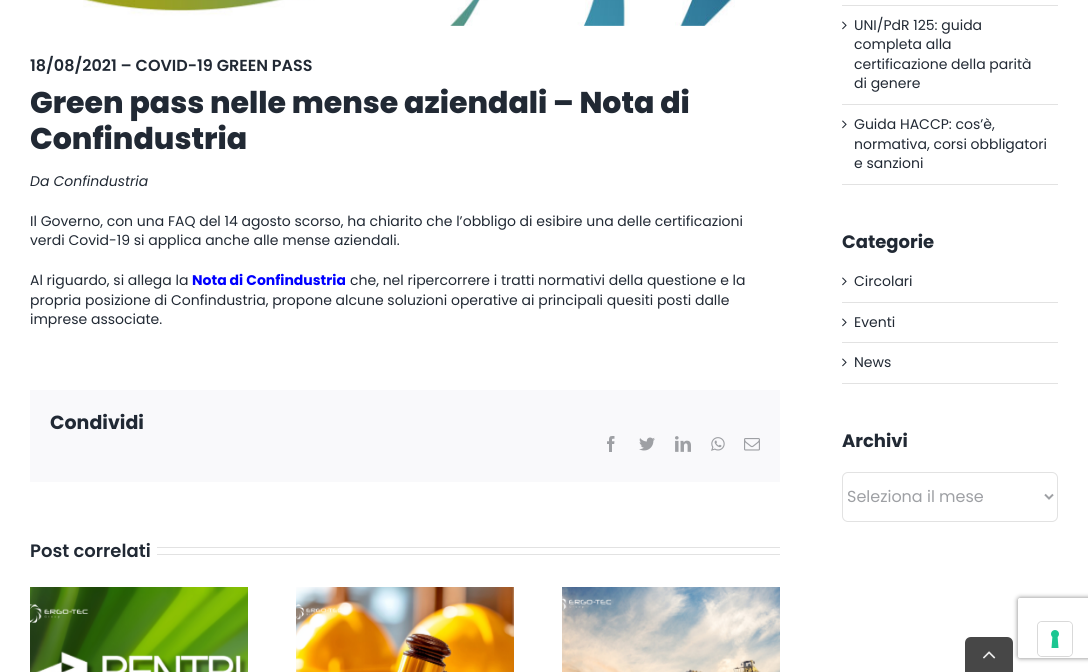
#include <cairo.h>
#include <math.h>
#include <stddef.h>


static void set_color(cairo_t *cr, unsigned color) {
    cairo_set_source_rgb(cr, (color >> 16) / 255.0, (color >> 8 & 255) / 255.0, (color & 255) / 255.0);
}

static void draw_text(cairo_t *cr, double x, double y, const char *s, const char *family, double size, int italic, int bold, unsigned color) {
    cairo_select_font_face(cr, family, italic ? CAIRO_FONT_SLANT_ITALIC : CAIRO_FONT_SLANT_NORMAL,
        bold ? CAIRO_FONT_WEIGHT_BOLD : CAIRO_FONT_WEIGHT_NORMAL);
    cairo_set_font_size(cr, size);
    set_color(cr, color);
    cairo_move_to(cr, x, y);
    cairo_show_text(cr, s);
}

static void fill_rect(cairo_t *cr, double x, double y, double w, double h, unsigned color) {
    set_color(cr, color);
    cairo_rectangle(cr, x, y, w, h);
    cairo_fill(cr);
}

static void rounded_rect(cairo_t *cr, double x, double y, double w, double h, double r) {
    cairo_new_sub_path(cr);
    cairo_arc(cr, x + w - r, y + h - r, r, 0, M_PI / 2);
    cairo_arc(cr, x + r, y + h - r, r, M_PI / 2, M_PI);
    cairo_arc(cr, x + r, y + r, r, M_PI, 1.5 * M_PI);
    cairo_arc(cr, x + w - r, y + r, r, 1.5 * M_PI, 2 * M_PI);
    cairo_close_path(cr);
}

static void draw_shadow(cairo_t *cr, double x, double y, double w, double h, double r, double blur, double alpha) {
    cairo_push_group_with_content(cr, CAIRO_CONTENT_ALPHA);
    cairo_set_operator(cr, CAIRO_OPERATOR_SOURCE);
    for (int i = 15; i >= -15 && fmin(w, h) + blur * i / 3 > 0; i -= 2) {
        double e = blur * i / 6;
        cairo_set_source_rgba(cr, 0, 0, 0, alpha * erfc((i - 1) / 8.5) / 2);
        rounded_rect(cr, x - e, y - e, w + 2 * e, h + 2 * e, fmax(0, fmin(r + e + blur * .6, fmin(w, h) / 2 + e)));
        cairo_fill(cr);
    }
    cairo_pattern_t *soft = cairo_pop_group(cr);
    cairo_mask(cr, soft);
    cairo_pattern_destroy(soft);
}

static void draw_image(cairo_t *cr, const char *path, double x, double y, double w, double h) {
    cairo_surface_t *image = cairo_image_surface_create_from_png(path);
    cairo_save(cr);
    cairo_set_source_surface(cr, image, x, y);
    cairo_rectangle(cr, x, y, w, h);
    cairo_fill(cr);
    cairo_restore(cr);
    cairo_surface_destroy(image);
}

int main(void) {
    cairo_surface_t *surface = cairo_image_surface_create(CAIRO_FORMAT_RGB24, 1088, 672);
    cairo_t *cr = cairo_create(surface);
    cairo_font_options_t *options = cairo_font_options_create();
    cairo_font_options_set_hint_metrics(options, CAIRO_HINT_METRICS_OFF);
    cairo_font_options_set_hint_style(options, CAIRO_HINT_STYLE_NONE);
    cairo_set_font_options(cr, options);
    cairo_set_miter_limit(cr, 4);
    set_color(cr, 0xFFFFFF);
    cairo_paint(cr);
    draw_image(cr, "assets/img1.png", 83, 0, 652, 26);
    draw_text(cr, 30, 71, "18/08/2021 – COVID-19 GREEN PASS", "Poppins SemiBold", 16, 0, 0, 0x212934);
    draw_text(cr, 30, 113, "Green pass nelle mense aziendali – Nota di", "Poppins ExtraBold", 30, 0, 0, 0x212934);
    draw_text(cr, 30, 149, "Confindustria", "Poppins ExtraBold", 30, 0, 0, 0x212934);
    draw_text(cr, 30, 186, "Da Confindustria", "Poppins", 14, 1, 0, 0x212934);
    draw_text(cr, 30, 226, "Il Governo, con una FAQ del 14 agosto scorso, ha chiarito che l’obbligo di esibire una delle certificazioni", "Poppins", 14, 0, 0, 0x212934);
    draw_text(cr, 30, 245, "verdi Covid-19 si applica anche alle mense aziendali.", "Poppins", 14, 0, 0, 0x212934);
    draw_text(cr, 30, 285, "Al riguardo, si allega la", "Poppins", 14, 0, 0, 0x212934);
    draw_text(cr, 192, 285, "Nota di Confindustria", "Poppins", 14, 0, 1, 0x0000FF);
    draw_text(cr, 350, 285, "che, nel ripercorrere i tratti normativi della questione e la", "Poppins", 14, 0, 0, 0x212934);
    draw_text(cr, 30, 305, "propria posizione di Confindustria, propone alcune soluzioni operative ai principali quesiti posti dalle", "Poppins", 14, 0, 0, 0x212934);
    draw_text(cr, 30, 324, "imprese associate.", "Poppins", 14, 0, 0, 0x212934);
    fill_rect(cr, 30, 390, 750, 92, 0xF9F9FB);
    draw_text(cr, 50, 429, "Condividi", "Poppins", 19, 0, 1, 0x212934);
    draw_image(cr, "assets/img2.png", 607, 436, 8, 16);
    draw_image(cr, "assets/img3.png", 639, 437, 16, 14);
    draw_image(cr, "assets/img4.png", 675, 436, 16, 16);
    draw_image(cr, "assets/img5.png", 711, 437, 14, 14);
    draw_image(cr, "assets/img6.png", 744, 438, 16, 13);
    draw_text(cr, 30, 557, "Post correlati", "Poppins SemiBold", 18, 0, 0, 0x212934);
    fill_rect(cr, 157, 547, 623, 1, 0xE2E2E2);
    fill_rect(cr, 157, 554, 623, 1, 0xE2E2E2);
    draw_image(cr, "assets/img7.png", 30, 587, 218, 85);
    draw_image(cr, "assets/img8.png", 296, 587, 218, 85);
    draw_image(cr, "assets/img9.png", 562, 587, 218, 85);
    fill_rect(cr, 842, 5, 216, 1, 0xE2E2E2);
    fill_rect(cr, 842, 104, 216, 1, 0xE2E2E2);
    draw_image(cr, "assets/img10.png", 842, 21, 5, 9);
    draw_text(cr, 854, 30, "UNI/PdR 125: guida", "Poppins", 14, 0, 0, 0x212934);
    draw_text(cr, 854, 49, "completa alla", "Poppins", 14, 0, 0, 0x212934);
    draw_text(cr, 854, 69, "certificazione della parità", "Poppins", 14, 0, 0, 0x212934);
    draw_text(cr, 854, 88, "di genere", "Poppins", 14, 0, 0, 0x212934);
    fill_rect(cr, 842, 184, 216, 1, 0xE2E2E2);
    draw_image(cr, "assets/img10.png", 842, 120, 5, 9);
    draw_text(cr, 854, 129, "Guida HACCP: cos’è,", "Poppins", 14, 0, 0, 0x212934);
    draw_text(cr, 854, 149, "normativa, corsi obbligatori", "Poppins", 14, 0, 0, 0x212934);
    draw_text(cr, 854, 168, "e sanzioni", "Poppins", 14, 0, 0, 0x212934);
    draw_text(cr, 842, 248, "Categorie", "Poppins", 18, 0, 1, 0x212934);
    fill_rect(cr, 842, 302, 216, 1, 0xE2E2E2);
    draw_image(cr, "assets/img10.png", 842, 277, 5, 9);
    draw_text(cr, 854, 286, "Circolari", "Poppins", 14, 0, 0, 0x212934);
    fill_rect(cr, 842, 342, 216, 1, 0xE2E2E2);
    draw_image(cr, "assets/img10.png", 842, 318, 5, 9);
    draw_text(cr, 854, 327, "Eventi", "Poppins", 14, 0, 0, 0x212934);
    fill_rect(cr, 842, 383, 216, 1, 0xE2E2E2);
    draw_image(cr, "assets/img10.png", 842, 358, 5, 9);
    draw_text(cr, 854, 367, "News", "Poppins", 14, 0, 0, 0x212934);
    draw_text(cr, 842, 447, "Archivi", "Poppins", 18, 0, 1, 0x212934);
    rounded_rect(cr, 842.5, 472.5, 215, 49, 5.5);
    set_color(cr, 0xE2E2E2);
    cairo_set_line_width(cr, 1);
    cairo_stroke(cr);
    cairo_new_path(cr);
    cairo_move_to(cr, 1045, 494.5);
    cairo_line_to(cr, 1049, 498.5);
    cairo_line_to(cr, 1053, 494.5);
    set_color(cr, 0x9EA0A4);
    cairo_set_line_width(cr, 2);
    cairo_stroke(cr);
    draw_text(cr, 847, 502, "Seleziona il mese", "Poppins", 16, 0, 0, 0x9EA0A4);
    cairo_save(cr);
    cairo_set_fill_rule(cr, CAIRO_FILL_RULE_EVEN_ODD);
    cairo_new_path(cr);
    cairo_move_to(cr, 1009, 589);
    cairo_line_to(cr, 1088, 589);
    cairo_line_to(cr, 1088, 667);
    cairo_line_to(cr, 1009, 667);
    cairo_close_path(cr);
    cairo_move_to(cr, 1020, 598);
    cairo_line_to(cr, 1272, 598);
    cairo_curve_to(cr, 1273, 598, 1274, 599, 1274, 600);
    cairo_line_to(cr, 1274, 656);
    cairo_curve_to(cr, 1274, 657, 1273, 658, 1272, 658);
    cairo_line_to(cr, 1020, 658);
    cairo_curve_to(cr, 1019, 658, 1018, 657, 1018, 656);
    cairo_line_to(cr, 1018, 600);
    cairo_curve_to(cr, 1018, 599, 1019, 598, 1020, 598);
    cairo_close_path(cr);
    cairo_clip(cr);
    set_color(cr, 0x808080);
    draw_shadow(cr, 1018, 598, 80, 60, 2, 2.5, 1);
    cairo_restore(cr);
    set_color(cr, 0x474747);
    cairo_new_path(cr);
    cairo_move_to(cr, 971, 637);
    cairo_line_to(cr, 1007, 637);
    cairo_curve_to(cr, 1010.5, 637, 1013, 639.5, 1013, 643);
    cairo_line_to(cr, 1013, 672);
    cairo_line_to(cr, 965, 672);
    cairo_line_to(cr, 965, 643);
    cairo_curve_to(cr, 965, 639.5, 967.5, 637, 971, 637);
    cairo_close_path(cr);
    cairo_fill(cr);
    draw_image(cr, "assets/img11.png", 983, 651, 13, 8);
    rounded_rect(cr, 1037.5, 621.5, 35, 35, 4.5);
    set_color(cr, 0xD9D9D9);
    cairo_set_line_width(cr, 1);
    cairo_stroke(cr);
    set_color(cr, 0xFFFFFF);
    rounded_rect(cr, 1038, 622, 34, 34, 4);
    cairo_fill(cr);
    draw_image(cr, "assets/img12.png", 1051, 630, 8, 18);
    cairo_surface_write_to_png(surface, "output.png");
    cairo_font_options_destroy(options);
    cairo_destroy(cr);
    cairo_surface_destroy(surface);
    return 0;
}
